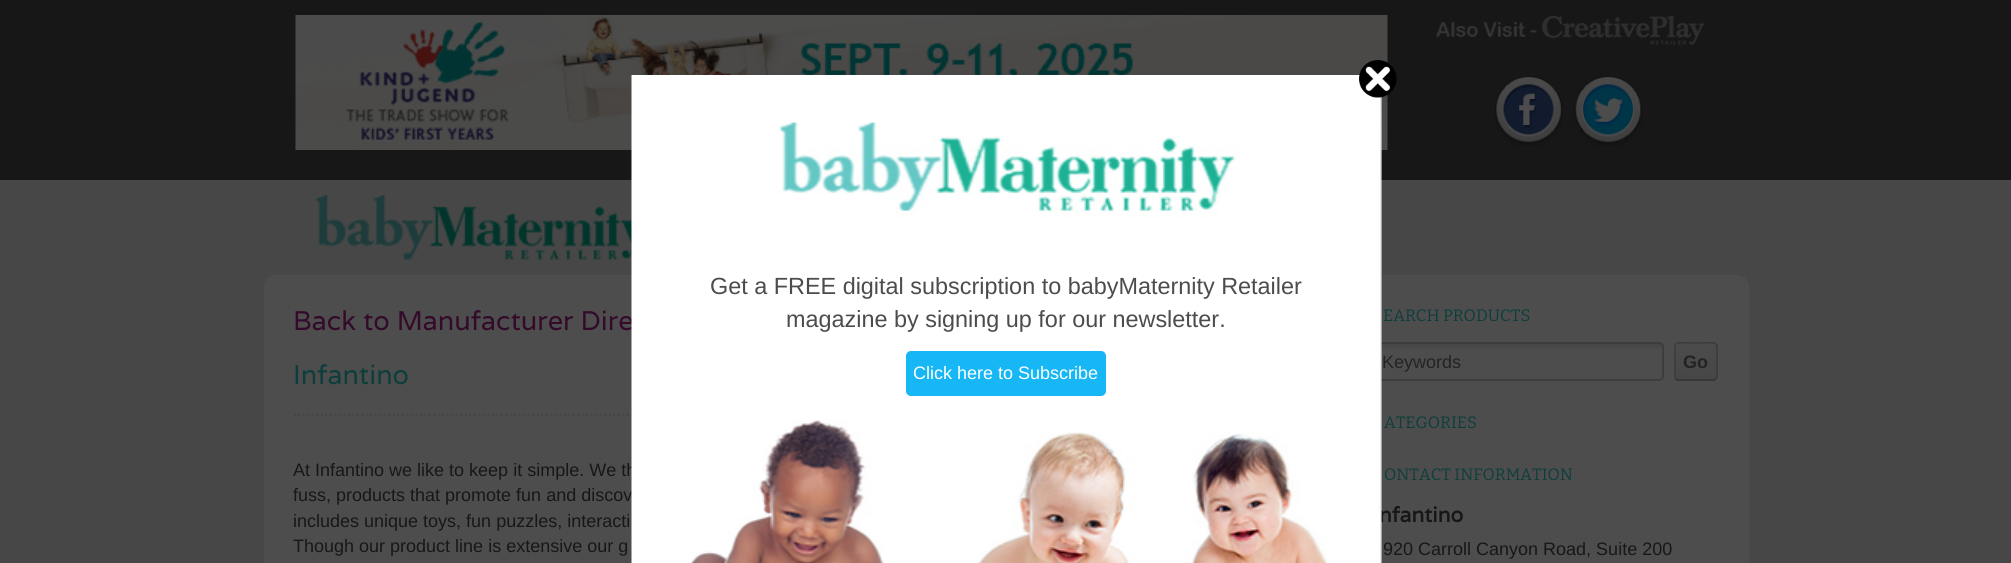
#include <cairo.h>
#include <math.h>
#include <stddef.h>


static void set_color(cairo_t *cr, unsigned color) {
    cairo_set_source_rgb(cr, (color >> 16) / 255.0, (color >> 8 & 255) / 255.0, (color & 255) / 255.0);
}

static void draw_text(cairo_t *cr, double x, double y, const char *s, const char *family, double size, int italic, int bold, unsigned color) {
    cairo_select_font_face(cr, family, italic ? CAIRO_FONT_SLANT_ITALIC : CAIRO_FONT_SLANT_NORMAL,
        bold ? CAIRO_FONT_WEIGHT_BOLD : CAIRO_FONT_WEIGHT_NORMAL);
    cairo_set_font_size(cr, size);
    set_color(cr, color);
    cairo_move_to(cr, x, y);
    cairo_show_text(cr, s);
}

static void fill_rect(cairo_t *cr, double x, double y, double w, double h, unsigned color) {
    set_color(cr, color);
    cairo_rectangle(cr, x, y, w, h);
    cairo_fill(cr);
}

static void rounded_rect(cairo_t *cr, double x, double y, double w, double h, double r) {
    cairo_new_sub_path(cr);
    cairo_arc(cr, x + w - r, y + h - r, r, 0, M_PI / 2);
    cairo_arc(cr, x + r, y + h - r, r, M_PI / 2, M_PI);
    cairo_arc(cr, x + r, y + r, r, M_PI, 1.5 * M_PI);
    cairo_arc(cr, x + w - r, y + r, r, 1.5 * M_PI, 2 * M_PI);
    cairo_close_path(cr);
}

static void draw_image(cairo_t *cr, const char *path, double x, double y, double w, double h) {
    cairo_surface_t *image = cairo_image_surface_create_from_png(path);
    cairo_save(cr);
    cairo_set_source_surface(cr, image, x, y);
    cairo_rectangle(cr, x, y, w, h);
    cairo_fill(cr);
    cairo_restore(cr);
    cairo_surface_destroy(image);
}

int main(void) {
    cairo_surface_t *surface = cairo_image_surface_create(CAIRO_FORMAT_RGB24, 2011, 563);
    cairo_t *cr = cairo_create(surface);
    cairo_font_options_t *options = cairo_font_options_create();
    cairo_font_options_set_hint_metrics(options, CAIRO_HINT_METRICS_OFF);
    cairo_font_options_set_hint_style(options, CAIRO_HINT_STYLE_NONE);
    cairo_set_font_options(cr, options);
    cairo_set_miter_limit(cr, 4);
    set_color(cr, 0x474747);
    cairo_paint(cr);
    fill_rect(cr, 0, 0, 2011, 180, 0x171717);
    draw_image(cr, "assets/img1.png", 295, 15, 1093, 135);
    draw_image(cr, "assets/img2.png", 1436, 15, 268, 30);
    draw_image(cr, "assets/img3.png", 1494, 76, 69, 71);
    draw_image(cr, "assets/img4.png", 1574, 76, 69, 71);
    draw_image(cr, "assets/img5.png", 316, 195, 316, 65);
    set_color(cr, 0x4D4D4D);
    rounded_rect(cr, 264, 275, 1485, 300, 12);
    cairo_fill(cr);
    draw_text(cr, 293, 330, "Back to Manufacturer Dire", "Varela", 27, 0, 0, 0x340A2B);
    draw_image(cr, "assets/img8.png", 294, 414, 338, 2);
    draw_text(cr, 293, 476, "At Infantino we like to keep it simple. We th", "Liberation Sans", 18, 0, 0, 0x171717);
    draw_text(cr, 293, 501, "fuss, products that promote fun and discov", "Liberation Sans", 18, 0, 0, 0x171717);
    draw_image(cr, "assets/img9.png", 1380, 342, 283, 7);
    rounded_rect(cr, 1375, 343, 288, 37, 4);
    set_color(cr, 0x3D3D3D);
    cairo_stroke(cr);
    draw_text(cr, 1379, 522, "nfantino", "Varela", 21, 0, 1, 0x171717);
    draw_image(cr, "assets/img6.png", 631, 75, 751, 488);
    draw_image(cr, "assets/img7.png", 1359, 60, 38, 38);
    draw_text(cr, 710, 294, "Get a FREE digital subscription to babyMaternity Retailer", "Liberation Sans", 23.4, 0, 0, 0x4C4C4C);
    draw_text(cr, 786, 327, "magazine by signing up for our newsletter.", "Liberation Sans", 23.4, 0, 0, 0x4C4C4C);
    set_color(cr, 0x17B7F6);
    rounded_rect(cr, 906, 351, 200, 45, 5);
    cairo_fill(cr);
    draw_text(cr, 913, 379, "Click here to Subscribe", "Liberation Sans", 18, 0, 0, 0xFFFFFF);
    draw_text(cr, 293, 384, "Infantino", "Varela", 27, 0, 0, 0x0D3E3C);
    draw_text(cr, 293, 527, "includes unique toys, fun puzzles, interacti", "Liberation Sans", 18, 0, 0, 0x171717);
    draw_text(cr, 293, 552, "Though our product line is extensive our g", "Liberation Sans", 18, 0, 0, 0x171717);
    draw_text(cr, 1383, 321, "EARCH PRODUCTS", "Bitter", 16.5, 0, 0, 0x0D3E3C);
    draw_text(cr, 1382, 368, "Keywords", "Liberation Sans", 18, 0, 0, 0x232323);
    set_color(cr, 0x3B3B3B);
    rounded_rect(cr, 1674, 342, 44, 39, 5);
    cairo_fill(cr);
    draw_image(cr, "assets/img10.png", 1674, 342, 44, 39);
    cairo_new_path(cr);
    cairo_move_to(cr, 1715.5, 379);
    cairo_curve_to(cr, 1715, 380, 1714, 380, 1713, 380);
    cairo_line_to(cr, 1678.5, 380);
    cairo_curve_to(cr, 1677.5, 380, 1676.5, 380, 1676, 379);
    set_color(cr, 0x323232);
    cairo_set_line_width(cr, 1.5);
    cairo_stroke(cr);
    cairo_new_path(cr);
    cairo_move_to(cr, 1676, 379);
    cairo_curve_to(cr, 1674, 377.5, 1675, 373.5, 1675, 371.5);
    cairo_line_to(cr, 1675, 361.5);
    cairo_curve_to(cr, 1675, 338.5, 1671.5, 343, 1696, 343);
    cairo_curve_to(cr, 1720, 343, 1717, 338.5, 1717, 361.5);
    cairo_line_to(cr, 1717, 371.5);
    cairo_curve_to(cr, 1717, 373.5, 1717.5, 377.5, 1715.5, 379);
    set_color(cr, 0x3B3B3B);
    cairo_stroke(cr);
    draw_text(cr, 1683, 368, "Go", "Liberation Sans", 18, 0, 1, 0x232323);
    draw_text(cr, 1384, 428, "ATEGORIES", "Bitter", 16.5, 0, 0, 0x0D3E3C);
    draw_text(cr, 1384, 480, "ONTACT INFORMATION", "Bitter", 16.5, 0, 0, 0x0D3E3C);
    draw_text(cr, 1383, 555, "920 Carroll Canyon Road, Suite 200", "Liberation Sans", 18, 0, 0, 0x171717);
    cairo_surface_write_to_png(surface, "output.png");
    cairo_font_options_destroy(options);
    cairo_destroy(cr);
    cairo_surface_destroy(surface);
    return 0;
}
